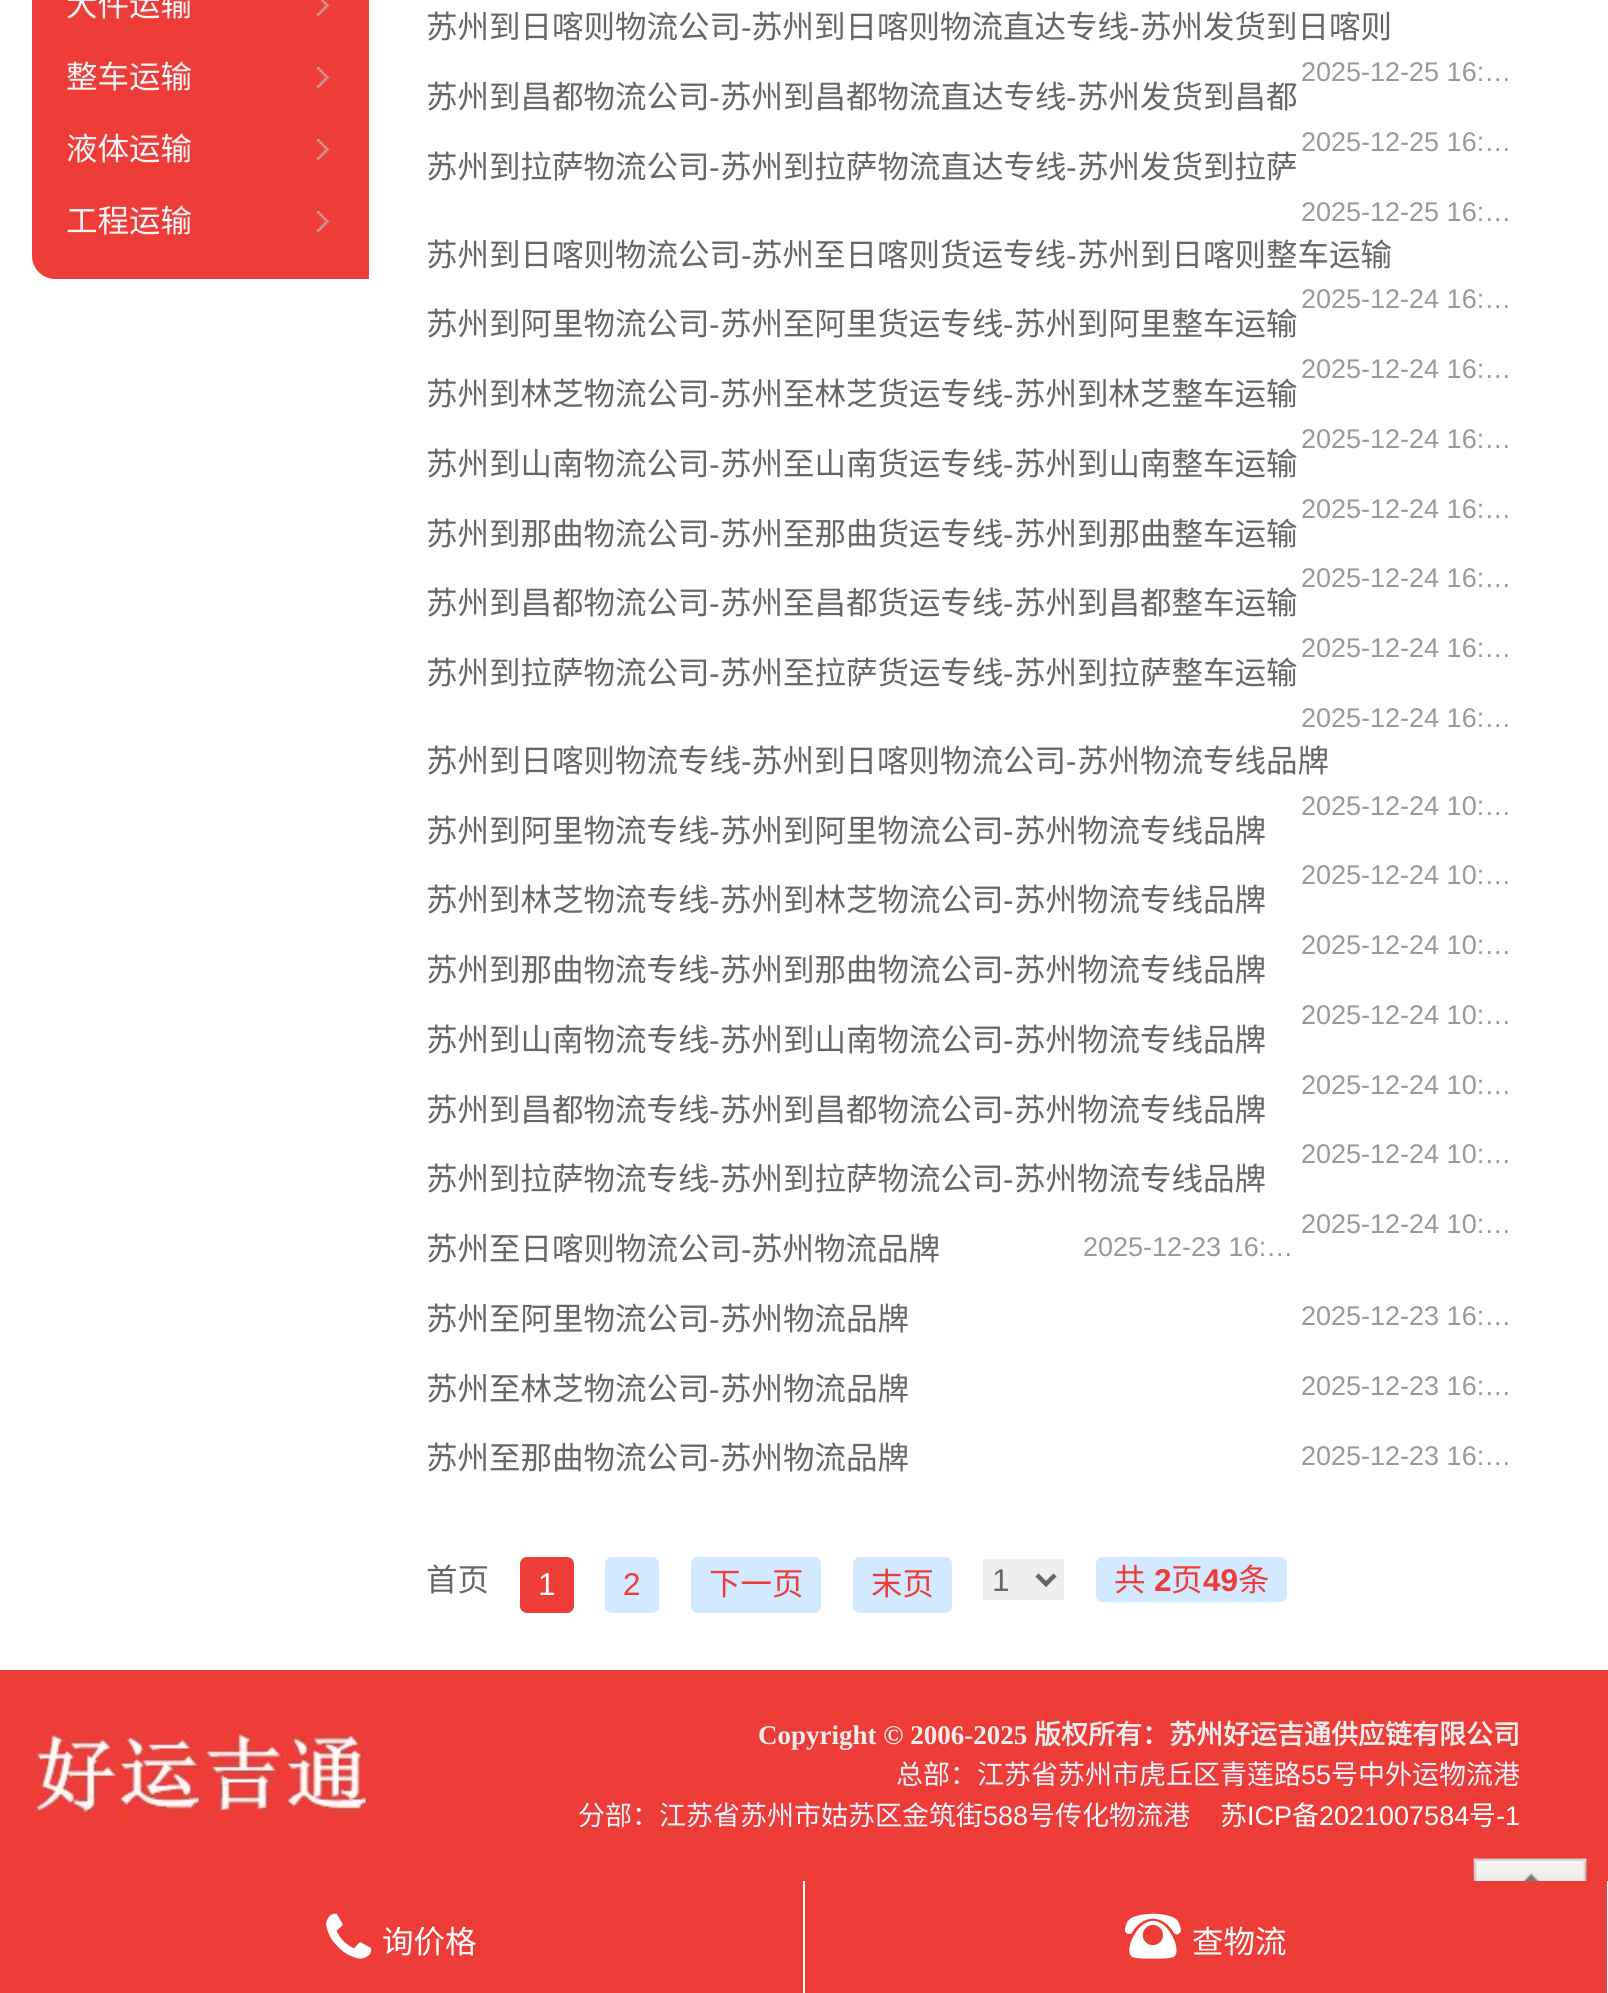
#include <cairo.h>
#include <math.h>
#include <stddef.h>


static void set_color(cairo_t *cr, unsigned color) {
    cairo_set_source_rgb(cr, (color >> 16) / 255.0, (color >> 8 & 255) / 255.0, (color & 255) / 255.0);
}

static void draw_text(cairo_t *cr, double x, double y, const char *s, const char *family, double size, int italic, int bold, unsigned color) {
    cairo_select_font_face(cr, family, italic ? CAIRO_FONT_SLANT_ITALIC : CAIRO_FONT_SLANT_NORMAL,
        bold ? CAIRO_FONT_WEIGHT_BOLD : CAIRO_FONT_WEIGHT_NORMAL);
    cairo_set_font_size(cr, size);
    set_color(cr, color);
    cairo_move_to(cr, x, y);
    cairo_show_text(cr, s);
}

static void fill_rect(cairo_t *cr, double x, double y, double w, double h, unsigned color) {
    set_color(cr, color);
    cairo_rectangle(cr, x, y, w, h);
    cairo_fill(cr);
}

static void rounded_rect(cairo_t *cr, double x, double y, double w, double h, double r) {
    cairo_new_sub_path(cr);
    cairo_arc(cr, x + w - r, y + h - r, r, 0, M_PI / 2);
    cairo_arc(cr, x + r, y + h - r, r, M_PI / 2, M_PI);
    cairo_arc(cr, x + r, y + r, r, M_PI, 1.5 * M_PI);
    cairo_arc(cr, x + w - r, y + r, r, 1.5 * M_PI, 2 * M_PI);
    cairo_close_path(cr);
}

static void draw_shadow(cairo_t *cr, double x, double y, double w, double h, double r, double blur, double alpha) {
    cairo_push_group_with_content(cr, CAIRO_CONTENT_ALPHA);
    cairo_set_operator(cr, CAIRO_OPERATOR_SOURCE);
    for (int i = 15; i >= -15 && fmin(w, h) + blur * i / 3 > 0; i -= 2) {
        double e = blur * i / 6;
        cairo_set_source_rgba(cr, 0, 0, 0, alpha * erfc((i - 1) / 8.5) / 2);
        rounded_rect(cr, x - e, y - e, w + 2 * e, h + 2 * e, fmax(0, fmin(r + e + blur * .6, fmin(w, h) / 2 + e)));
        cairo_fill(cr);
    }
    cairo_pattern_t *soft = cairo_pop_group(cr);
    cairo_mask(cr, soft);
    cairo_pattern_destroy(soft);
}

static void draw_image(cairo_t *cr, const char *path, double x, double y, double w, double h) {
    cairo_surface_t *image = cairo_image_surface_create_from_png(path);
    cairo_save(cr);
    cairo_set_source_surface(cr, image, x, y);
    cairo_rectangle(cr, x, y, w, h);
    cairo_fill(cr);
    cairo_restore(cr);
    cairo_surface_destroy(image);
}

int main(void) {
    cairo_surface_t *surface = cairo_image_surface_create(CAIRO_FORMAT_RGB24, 1608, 1993);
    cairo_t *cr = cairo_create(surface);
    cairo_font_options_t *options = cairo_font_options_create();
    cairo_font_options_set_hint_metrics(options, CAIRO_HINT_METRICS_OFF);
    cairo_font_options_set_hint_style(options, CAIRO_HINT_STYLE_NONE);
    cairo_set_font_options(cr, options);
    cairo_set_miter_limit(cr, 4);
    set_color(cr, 0xFFFFFF);
    cairo_paint(cr);
    set_color(cr, 0xEE3D38);
    cairo_new_path(cr);
    cairo_move_to(cr, 32, -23);
    cairo_line_to(cr, 346, -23);
    cairo_curve_to(cr, 358.5, -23, 369, -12.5, 369, 0);
    cairo_line_to(cr, 369, 279);
    cairo_line_to(cr, 55, 279);
    cairo_curve_to(cr, 42.5, 279, 32, 268.5, 32, 256);
    cairo_close_path(cr);
    cairo_fill(cr);
    draw_image(cr, "assets/img1.png", 316, 0, 14, 17);
    draw_text(cr, 66, 16, "大件运输", "Noto Sans CJK SC", 31.5, 0, 0, 0xF6F6F6);
    draw_image(cr, "assets/img2.png", 316, 67, 14, 22);
    draw_text(cr, 66, 88, "整车运输", "Noto Sans CJK SC", 31.5, 0, 0, 0xF6F6F6);
    draw_image(cr, "assets/img2.png", 316, 139, 14, 22);
    draw_text(cr, 66, 160, "液体运输", "Noto Sans CJK SC", 31.5, 0, 0, 0xF6F6F6);
    draw_image(cr, "assets/img2.png", 316, 211, 14, 22);
    draw_text(cr, 66, 232, "工程运输", "Noto Sans CJK SC", 31.5, 0, 0, 0xF6F6F6);
    draw_text(cr, 426, 38, "苏州到日喀则物流公司", "Noto Sans CJK SC", 31.5, 0, 0, 0x666666);
    draw_text(cr, 741, 38, "-", "Liberation Sans", 31.5, 0, 0, 0x666666);
    draw_text(cr, 751, 38, "苏州到日喀则物流直达专线", "Noto Sans CJK SC", 31.5, 0, 0, 0x666666);
    draw_text(cr, 1129, 38, "-", "Liberation Sans", 31.5, 0, 0, 0x666666);
    draw_text(cr, 1140, 38, "苏州发货到日喀则", "Noto Sans CJK SC", 31.5, 0, 0, 0x666666);
    draw_text(cr, 1301, 81, "2025-12-25 16:…", "Liberation Sans", 27, 0, 0, 0x999999);
    draw_text(cr, 426, 108, "苏州到昌都物流公司", "Noto Sans CJK SC", 31.5, 0, 0, 0x666666);
    draw_text(cr, 709, 108, "-", "Liberation Sans", 31.5, 0, 0, 0x666666);
    draw_text(cr, 720, 108, "苏州到昌都物流直达专线", "Noto Sans CJK SC", 31.5, 0, 0, 0x666666);
    draw_text(cr, 1066, 108, "-", "Liberation Sans", 31.5, 0, 0, 0x666666);
    draw_text(cr, 1077, 108, "苏州发货到昌都", "Noto Sans CJK SC", 31.5, 0, 0, 0x666666);
    draw_text(cr, 1301, 151, "2025-12-25 16:…", "Liberation Sans", 27, 0, 0, 0x999999);
    draw_text(cr, 426, 178, "苏州到拉萨物流公司", "Noto Sans CJK SC", 31.5, 0, 0, 0x666666);
    draw_text(cr, 709, 178, "-", "Liberation Sans", 31.5, 0, 0, 0x666666);
    draw_text(cr, 720, 178, "苏州到拉萨物流直达专线", "Noto Sans CJK SC", 31.5, 0, 0, 0x666666);
    draw_text(cr, 1066, 178, "-", "Liberation Sans", 31.5, 0, 0, 0x666666);
    draw_text(cr, 1077, 178, "苏州发货到拉萨", "Noto Sans CJK SC", 31.5, 0, 0, 0x666666);
    draw_text(cr, 1301, 221, "2025-12-25 16:…", "Liberation Sans", 27, 0, 0, 0x999999);
    draw_text(cr, 426, 266, "苏州到日喀则物流公司", "Noto Sans CJK SC", 31.5, 0, 0, 0x666666);
    draw_text(cr, 741, 266, "-", "Liberation Sans", 31.5, 0, 0, 0x666666);
    draw_text(cr, 751, 266, "苏州至日喀则货运专线", "Noto Sans CJK SC", 31.5, 0, 0, 0x666666);
    draw_text(cr, 1066, 266, "-", "Liberation Sans", 31.5, 0, 0, 0x666666);
    draw_text(cr, 1077, 266, "苏州到日喀则整车运输", "Noto Sans CJK SC", 31.5, 0, 0, 0x666666);
    draw_text(cr, 1301, 308, "2025-12-24 16:…", "Liberation Sans", 27, 0, 0, 0x999999);
    draw_text(cr, 426, 335, "苏州到阿里物流公司", "Noto Sans CJK SC", 31.5, 0, 0, 0x666666);
    draw_text(cr, 709, 335, "-", "Liberation Sans", 31.5, 0, 0, 0x666666);
    draw_text(cr, 720, 335, "苏州至阿里货运专线", "Noto Sans CJK SC", 31.5, 0, 0, 0x666666);
    draw_text(cr, 1003, 335, "-", "Liberation Sans", 31.5, 0, 0, 0x666666);
    draw_text(cr, 1014, 335, "苏州到阿里整车运输", "Noto Sans CJK SC", 31.5, 0, 0, 0x666666);
    draw_text(cr, 1301, 378, "2025-12-24 16:…", "Liberation Sans", 27, 0, 0, 0x999999);
    draw_text(cr, 426, 405, "苏州到林芝物流公司", "Noto Sans CJK SC", 31.5, 0, 0, 0x666666);
    draw_text(cr, 709, 405, "-", "Liberation Sans", 31.5, 0, 0, 0x666666);
    draw_text(cr, 720, 405, "苏州至林芝货运专线", "Noto Sans CJK SC", 31.5, 0, 0, 0x666666);
    draw_text(cr, 1003, 405, "-", "Liberation Sans", 31.5, 0, 0, 0x666666);
    draw_text(cr, 1014, 405, "苏州到林芝整车运输", "Noto Sans CJK SC", 31.5, 0, 0, 0x666666);
    draw_text(cr, 1301, 448, "2025-12-24 16:…", "Liberation Sans", 27, 0, 0, 0x999999);
    draw_text(cr, 426, 475, "苏州到山南物流公司", "Noto Sans CJK SC", 31.5, 0, 0, 0x666666);
    draw_text(cr, 709, 475, "-", "Liberation Sans", 31.5, 0, 0, 0x666666);
    draw_text(cr, 720, 475, "苏州至山南货运专线", "Noto Sans CJK SC", 31.5, 0, 0, 0x666666);
    draw_text(cr, 1003, 475, "-", "Liberation Sans", 31.5, 0, 0, 0x666666);
    draw_text(cr, 1014, 475, "苏州到山南整车运输", "Noto Sans CJK SC", 31.5, 0, 0, 0x666666);
    draw_text(cr, 1301, 518, "2025-12-24 16:…", "Liberation Sans", 27, 0, 0, 0x999999);
    draw_text(cr, 426, 545, "苏州到那曲物流公司", "Noto Sans CJK SC", 31.5, 0, 0, 0x666666);
    draw_text(cr, 709, 545, "-", "Liberation Sans", 31.5, 0, 0, 0x666666);
    draw_text(cr, 720, 545, "苏州至那曲货运专线", "Noto Sans CJK SC", 31.5, 0, 0, 0x666666);
    draw_text(cr, 1003, 545, "-", "Liberation Sans", 31.5, 0, 0, 0x666666);
    draw_text(cr, 1014, 545, "苏州到那曲整车运输", "Noto Sans CJK SC", 31.5, 0, 0, 0x666666);
    draw_text(cr, 1301, 587, "2025-12-24 16:…", "Liberation Sans", 27, 0, 0, 0x999999);
    draw_text(cr, 426, 614, "苏州到昌都物流公司", "Noto Sans CJK SC", 31.5, 0, 0, 0x666666);
    draw_text(cr, 709, 614, "-", "Liberation Sans", 31.5, 0, 0, 0x666666);
    draw_text(cr, 720, 614, "苏州至昌都货运专线", "Noto Sans CJK SC", 31.5, 0, 0, 0x666666);
    draw_text(cr, 1003, 614, "-", "Liberation Sans", 31.5, 0, 0, 0x666666);
    draw_text(cr, 1014, 614, "苏州到昌都整车运输", "Noto Sans CJK SC", 31.5, 0, 0, 0x666666);
    draw_text(cr, 1301, 657, "2025-12-24 16:…", "Liberation Sans", 27, 0, 0, 0x999999);
    draw_text(cr, 426, 684, "苏州到拉萨物流公司", "Noto Sans CJK SC", 31.5, 0, 0, 0x666666);
    draw_text(cr, 709, 684, "-", "Liberation Sans", 31.5, 0, 0, 0x666666);
    draw_text(cr, 720, 684, "苏州至拉萨货运专线", "Noto Sans CJK SC", 31.5, 0, 0, 0x666666);
    draw_text(cr, 1003, 684, "-", "Liberation Sans", 31.5, 0, 0, 0x666666);
    draw_text(cr, 1014, 684, "苏州到拉萨整车运输", "Noto Sans CJK SC", 31.5, 0, 0, 0x666666);
    draw_text(cr, 1301, 727, "2025-12-24 16:…", "Liberation Sans", 27, 0, 0, 0x999999);
    draw_text(cr, 426, 772, "苏州到日喀则物流专线", "Noto Sans CJK SC", 31.5, 0, 0, 0x666666);
    draw_text(cr, 741, 772, "-", "Liberation Sans", 31.5, 0, 0, 0x666666);
    draw_text(cr, 751, 772, "苏州到日喀则物流公司", "Noto Sans CJK SC", 31.5, 0, 0, 0x666666);
    draw_text(cr, 1066, 772, "-", "Liberation Sans", 31.5, 0, 0, 0x666666);
    draw_text(cr, 1077, 772, "苏州物流专线品牌", "Noto Sans CJK SC", 31.5, 0, 0, 0x666666);
    draw_text(cr, 1301, 815, "2025-12-24 10:…", "Liberation Sans", 27, 0, 0, 0x999999);
    draw_text(cr, 426, 842, "苏州到阿里物流专线", "Noto Sans CJK SC", 31.5, 0, 0, 0x666666);
    draw_text(cr, 709, 842, "-", "Liberation Sans", 31.5, 0, 0, 0x666666);
    draw_text(cr, 720, 842, "苏州到阿里物流公司", "Noto Sans CJK SC", 31.5, 0, 0, 0x666666);
    draw_text(cr, 1003, 842, "-", "Liberation Sans", 31.5, 0, 0, 0x666666);
    draw_text(cr, 1014, 842, "苏州物流专线品牌", "Noto Sans CJK SC", 31.5, 0, 0, 0x666666);
    draw_text(cr, 1301, 884, "2025-12-24 10:…", "Liberation Sans", 27, 0, 0, 0x999999);
    draw_text(cr, 426, 911, "苏州到林芝物流专线", "Noto Sans CJK SC", 31.5, 0, 0, 0x666666);
    draw_text(cr, 709, 911, "-", "Liberation Sans", 31.5, 0, 0, 0x666666);
    draw_text(cr, 720, 911, "苏州到林芝物流公司", "Noto Sans CJK SC", 31.5, 0, 0, 0x666666);
    draw_text(cr, 1003, 911, "-", "Liberation Sans", 31.5, 0, 0, 0x666666);
    draw_text(cr, 1014, 911, "苏州物流专线品牌", "Noto Sans CJK SC", 31.5, 0, 0, 0x666666);
    draw_text(cr, 1301, 954, "2025-12-24 10:…", "Liberation Sans", 27, 0, 0, 0x999999);
    draw_text(cr, 426, 981, "苏州到那曲物流专线", "Noto Sans CJK SC", 31.5, 0, 0, 0x666666);
    draw_text(cr, 709, 981, "-", "Liberation Sans", 31.5, 0, 0, 0x666666);
    draw_text(cr, 720, 981, "苏州到那曲物流公司", "Noto Sans CJK SC", 31.5, 0, 0, 0x666666);
    draw_text(cr, 1003, 981, "-", "Liberation Sans", 31.5, 0, 0, 0x666666);
    draw_text(cr, 1014, 981, "苏州物流专线品牌", "Noto Sans CJK SC", 31.5, 0, 0, 0x666666);
    draw_text(cr, 1301, 1024, "2025-12-24 10:…", "Liberation Sans", 27, 0, 0, 0x999999);
    draw_text(cr, 426, 1051, "苏州到山南物流专线", "Noto Sans CJK SC", 31.5, 0, 0, 0x666666);
    draw_text(cr, 709, 1051, "-", "Liberation Sans", 31.5, 0, 0, 0x666666);
    draw_text(cr, 720, 1051, "苏州到山南物流公司", "Noto Sans CJK SC", 31.5, 0, 0, 0x666666);
    draw_text(cr, 1003, 1051, "-", "Liberation Sans", 31.5, 0, 0, 0x666666);
    draw_text(cr, 1014, 1051, "苏州物流专线品牌", "Noto Sans CJK SC", 31.5, 0, 0, 0x666666);
    draw_text(cr, 1301, 1094, "2025-12-24 10:…", "Liberation Sans", 27, 0, 0, 0x999999);
    draw_text(cr, 426, 1121, "苏州到昌都物流专线", "Noto Sans CJK SC", 31.5, 0, 0, 0x666666);
    draw_text(cr, 709, 1121, "-", "Liberation Sans", 31.5, 0, 0, 0x666666);
    draw_text(cr, 720, 1121, "苏州到昌都物流公司", "Noto Sans CJK SC", 31.5, 0, 0, 0x666666);
    draw_text(cr, 1003, 1121, "-", "Liberation Sans", 31.5, 0, 0, 0x666666);
    draw_text(cr, 1014, 1121, "苏州物流专线品牌", "Noto Sans CJK SC", 31.5, 0, 0, 0x666666);
    draw_text(cr, 1301, 1163, "2025-12-24 10:…", "Liberation Sans", 27, 0, 0, 0x999999);
    draw_text(cr, 426, 1190, "苏州到拉萨物流专线", "Noto Sans CJK SC", 31.5, 0, 0, 0x666666);
    draw_text(cr, 709, 1190, "-", "Liberation Sans", 31.5, 0, 0, 0x666666);
    draw_text(cr, 720, 1190, "苏州到拉萨物流公司", "Noto Sans CJK SC", 31.5, 0, 0, 0x666666);
    draw_text(cr, 1003, 1190, "-", "Liberation Sans", 31.5, 0, 0, 0x666666);
    draw_text(cr, 1014, 1190, "苏州物流专线品牌", "Noto Sans CJK SC", 31.5, 0, 0, 0x666666);
    draw_text(cr, 1301, 1233, "2025-12-24 10:…", "Liberation Sans", 27, 0, 0, 0x999999);
    draw_text(cr, 426, 1260, "苏州至日喀则物流公司", "Noto Sans CJK SC", 31.5, 0, 0, 0x666666);
    draw_text(cr, 741, 1260, "-", "Liberation Sans", 31.5, 0, 0, 0x666666);
    draw_text(cr, 751, 1260, "苏州物流品牌", "Noto Sans CJK SC", 31.5, 0, 0, 0x666666);
    draw_text(cr, 1083, 1256, "2025-12-23 16:…", "Liberation Sans", 27, 0, 0, 0x999999);
    draw_text(cr, 426, 1330, "苏州至阿里物流公司", "Noto Sans CJK SC", 31.5, 0, 0, 0x666666);
    draw_text(cr, 709, 1330, "-", "Liberation Sans", 31.5, 0, 0, 0x666666);
    draw_text(cr, 720, 1330, "苏州物流品牌", "Noto Sans CJK SC", 31.5, 0, 0, 0x666666);
    draw_text(cr, 1301, 1325, "2025-12-23 16:…", "Liberation Sans", 27, 0, 0, 0x999999);
    draw_text(cr, 426, 1400, "苏州至林芝物流公司", "Noto Sans CJK SC", 31.5, 0, 0, 0x666666);
    draw_text(cr, 709, 1400, "-", "Liberation Sans", 31.5, 0, 0, 0x666666);
    draw_text(cr, 720, 1400, "苏州物流品牌", "Noto Sans CJK SC", 31.5, 0, 0, 0x666666);
    draw_text(cr, 1301, 1395, "2025-12-23 16:…", "Liberation Sans", 27, 0, 0, 0x999999);
    draw_text(cr, 426, 1469, "苏州至那曲物流公司", "Noto Sans CJK SC", 31.5, 0, 0, 0x666666);
    draw_text(cr, 709, 1469, "-", "Liberation Sans", 31.5, 0, 0, 0x666666);
    draw_text(cr, 720, 1469, "苏州物流品牌", "Noto Sans CJK SC", 31.5, 0, 0, 0x666666);
    draw_text(cr, 1301, 1465, "2025-12-23 16:…", "Liberation Sans", 27, 0, 0, 0x999999);
    draw_text(cr, 426, 1591, "首页", "Noto Sans CJK SC", 31.5, 0, 0, 0x666666);
    set_color(cr, 0xEE3D38);
    rounded_rect(cr, 520, 1557, 54, 56, 7);
    cairo_fill(cr);
    draw_text(cr, 538, 1595, "1", "Liberation Sans", 31.5, 0, 0, 0xFFFFFF);
    set_color(cr, 0xD2E9FF);
    rounded_rect(cr, 605, 1557, 54, 56, 7);
    cairo_fill(cr);
    draw_text(cr, 623, 1595, "2", "Liberation Sans", 31.5, 0, 0, 0xEE3D38);
    set_color(cr, 0xD2E9FF);
    rounded_rect(cr, 691, 1557, 130, 56, 7);
    cairo_fill(cr);
    draw_text(cr, 709, 1595, "下一页", "Noto Sans CJK SC", 31.5, 0, 0, 0xEE3D38);
    set_color(cr, 0xD2E9FF);
    rounded_rect(cr, 853, 1557, 99, 56, 7);
    cairo_fill(cr);
    draw_text(cr, 871, 1595, "末页", "Noto Sans CJK SC", 31.5, 0, 0, 0xEE3D38);
    fill_rect(cr, 983, 1559, 81, 41, 0xEFEFEF);
    cairo_new_path(cr);
    cairo_move_to(cr, 1037, 1575);
    cairo_line_to(cr, 1046, 1584);
    cairo_line_to(cr, 1055, 1575);
    set_color(cr, 0x666666);
    cairo_set_line_width(cr, 4.5);
    cairo_stroke(cr);
    draw_text(cr, 992, 1591, "1", "Liberation Sans", 31.5, 0, 0, 0x666666);
    set_color(cr, 0xD2E9FF);
    cairo_new_path(cr);
    cairo_move_to(cr, 1103, 1557);
    cairo_line_to(cr, 1154, 1557);
    cairo_line_to(cr, 1154, 1602);
    cairo_line_to(cr, 1103, 1602);
    cairo_curve_to(cr, 1099, 1602, 1096, 1599, 1096, 1595);
    cairo_line_to(cr, 1096, 1564);
    cairo_curve_to(cr, 1096, 1560, 1099, 1557, 1103, 1557);
    cairo_close_path(cr);
    cairo_fill(cr);
    draw_text(cr, 1114, 1591, "共", "Noto Sans CJK SC", 31.5, 0, 0, 0xEE3D38);
    fill_rect(cr, 1154, 1557, 84, 45, 0xD2E9FF);
    draw_text(cr, 1154, 1591, "2", "Liberation Sans", 31.5, 0, 1, 0xEE3D38);
    draw_text(cr, 1171, 1591, "页", "Noto Sans CJK SC", 31.5, 0, 0, 0xEE3D38);
    draw_text(cr, 1203, 1591, "49", "Liberation Sans", 31.5, 0, 1, 0xEE3D38);
    set_color(cr, 0xD2E9FF);
    cairo_new_path(cr);
    cairo_move_to(cr, 1238, 1557);
    cairo_line_to(cr, 1280, 1557);
    cairo_curve_to(cr, 1284, 1557, 1287, 1560, 1287, 1564);
    cairo_line_to(cr, 1287, 1595);
    cairo_curve_to(cr, 1287, 1599, 1284, 1602, 1280, 1602);
    cairo_line_to(cr, 1238, 1602);
    cairo_close_path(cr);
    cairo_fill(cr);
    draw_text(cr, 1238, 1591, "条", "Noto Sans CJK SC", 31.5, 0, 0, 0xEE3D38);
    fill_rect(cr, 0, 1670, 1608, 211, 0xEE3D38);
    draw_image(cr, "assets/img3.png", 31, 1714, 338, 110);
    draw_text(cr, 758, 1744, "Copyright © 2006-2025", "Liberation Serif", 27, 0, 1, 0xEEEEEE);
    draw_text(cr, 1034, 1744, "版权所有：苏州好运吉通供应链有限公司", "Noto Sans CJK SC", 27, 0, 1, 0xEEEEEE);
    draw_text(cr, 896, 1784, "总部：江苏省苏州市虎丘区青莲路", "Noto Sans CJK SC", 27, 0, 0, 0xECF5FF);
    draw_text(cr, 1301, 1784, "55", "Liberation Sans", 27, 0, 0, 0xECF5FF);
    draw_text(cr, 1331, 1784, "号中外运物流港", "Noto Sans CJK SC", 27, 0, 0, 0xECF5FF);
    draw_text(cr, 578, 1825, "分部：江苏省苏州市姑苏区金筑街", "Noto Sans CJK SC", 27, 0, 0, 0xECF5FF);
    draw_text(cr, 983, 1825, "588", "Liberation Sans", 27, 0, 0, 0xECF5FF);
    draw_text(cr, 1028, 1825, "号传化物流港", "Noto Sans CJK SC", 27, 0, 0, 0xECF5FF);
    draw_text(cr, 1220, 1825, "苏", "Noto Sans CJK SC", 27, 0, 0, 0xFFFFFF);
    draw_text(cr, 1247, 1825, "ICP", "Liberation Sans", 27, 0, 0, 0xFFFFFF);
    draw_text(cr, 1292, 1825, "备", "Noto Sans CJK SC", 27, 0, 0, 0xFFFFFF);
    draw_text(cr, 1319, 1825, "2021007584", "Liberation Sans", 27, 0, 0, 0xFFFFFF);
    draw_text(cr, 1469, 1825, "号", "Noto Sans CJK SC", 27, 0, 0, 0xFFFFFF);
    draw_text(cr, 1496, 1825, "-1", "Liberation Sans", 27, 0, 0, 0xFFFFFF);
    draw_image(cr, "assets/img4.png", 1473, 1858, 114, 23);
    set_color(cr, 0x000000);
    draw_shadow(cr, 0, 1895, 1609, 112, 0, 13.5, 0.15);
    fill_rect(cr, 0, 1881, 1607, 112, 0xEE3D38);
    fill_rect(cr, 803, 1881, 2, 112, 0xFFFFFF);
    draw_image(cr, "assets/img5.png", 326, 1913, 46, 46);
    draw_text(cr, 382, 1953, "询价格", "Noto Sans CJK SC", 31.5, 0, 0, 0xFFFFFF);
    fill_rect(cr, 1607, 1881, 1, 112, 0xFFFFFF);
    draw_image(cr, "assets/img6.png", 1124, 1913, 57, 46);
    draw_text(cr, 1192, 1953, "查物流", "Noto Sans CJK SC", 31.5, 0, 0, 0xFFFFFF);
    cairo_surface_write_to_png(surface, "output.png");
    cairo_font_options_destroy(options);
    cairo_destroy(cr);
    cairo_surface_destroy(surface);
    return 0;
}
